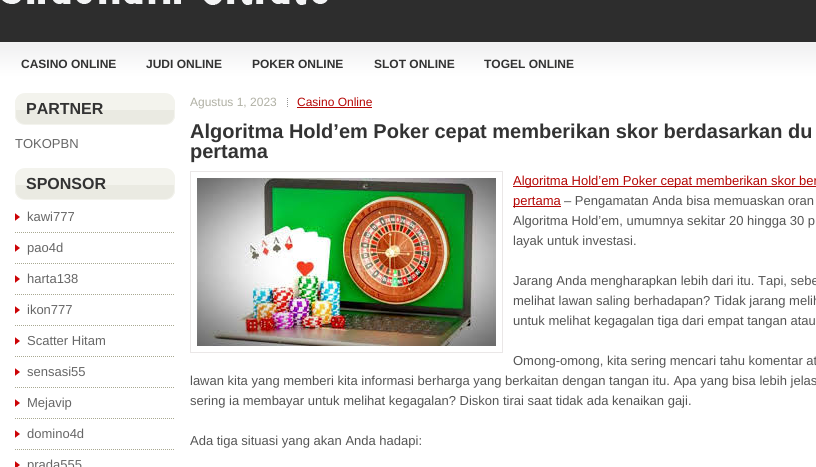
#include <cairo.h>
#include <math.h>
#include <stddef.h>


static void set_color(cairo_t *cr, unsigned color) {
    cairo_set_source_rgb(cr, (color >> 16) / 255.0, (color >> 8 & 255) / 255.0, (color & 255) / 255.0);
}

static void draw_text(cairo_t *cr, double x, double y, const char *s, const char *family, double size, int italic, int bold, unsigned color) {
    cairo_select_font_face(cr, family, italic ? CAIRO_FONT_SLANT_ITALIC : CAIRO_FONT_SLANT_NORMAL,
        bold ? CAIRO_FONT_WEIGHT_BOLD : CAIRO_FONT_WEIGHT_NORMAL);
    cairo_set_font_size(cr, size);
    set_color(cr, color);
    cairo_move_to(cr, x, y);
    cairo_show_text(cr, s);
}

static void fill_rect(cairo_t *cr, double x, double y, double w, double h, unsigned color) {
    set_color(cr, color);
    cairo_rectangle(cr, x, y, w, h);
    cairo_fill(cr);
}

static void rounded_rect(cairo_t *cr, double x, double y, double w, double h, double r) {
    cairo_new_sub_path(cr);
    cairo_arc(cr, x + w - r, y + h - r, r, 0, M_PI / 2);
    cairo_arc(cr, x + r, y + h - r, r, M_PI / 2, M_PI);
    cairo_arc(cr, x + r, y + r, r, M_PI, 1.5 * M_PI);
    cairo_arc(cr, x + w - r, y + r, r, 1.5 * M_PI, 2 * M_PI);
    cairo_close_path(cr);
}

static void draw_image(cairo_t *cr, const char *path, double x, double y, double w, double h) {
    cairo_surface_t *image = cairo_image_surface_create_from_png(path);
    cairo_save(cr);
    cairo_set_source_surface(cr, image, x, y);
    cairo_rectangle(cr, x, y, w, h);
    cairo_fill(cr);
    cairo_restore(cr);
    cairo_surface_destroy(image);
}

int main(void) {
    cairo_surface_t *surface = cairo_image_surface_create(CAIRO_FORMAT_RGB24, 816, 467);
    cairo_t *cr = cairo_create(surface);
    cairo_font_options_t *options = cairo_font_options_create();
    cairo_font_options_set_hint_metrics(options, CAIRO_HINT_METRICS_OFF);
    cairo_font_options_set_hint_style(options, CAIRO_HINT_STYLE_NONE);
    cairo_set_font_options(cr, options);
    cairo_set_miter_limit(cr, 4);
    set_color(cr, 0x2D2D2D);
    cairo_paint(cr);
    draw_image(cr, "assets/img1.png", 2, 0, 326, 5);
    draw_image(cr, "assets/img2.png", 0, 42, 816, 36);
    draw_text(cr, 21, 68, "CASINO ONLINE", "Liberation Sans", 12, 0, 1, 0x333333);
    draw_text(cr, 146, 68, "JUDI ONLINE", "Liberation Sans", 12, 0, 1, 0x333333);
    draw_text(cr, 252, 68, "POKER ONLINE", "Liberation Sans", 12, 0, 1, 0x333333);
    draw_text(cr, 374, 68, "SLOT ONLINE", "Liberation Sans", 12, 0, 1, 0x333333);
    draw_text(cr, 484, 68, "TOGEL ONLINE", "Liberation Sans", 12, 0, 1, 0x333333);
    fill_rect(cr, 0, 78, 816, 389, 0xFFFFFF);
    draw_image(cr, "assets/img3.png", 15, 94, 160, 30);
    rounded_rect(cr, 15.5, 93.5, 159, 31, 9.5);
    set_color(cr, 0xF3F3ED);
    cairo_set_line_width(cr, 1);
    cairo_stroke(cr);
    draw_text(cr, 26, 114, "PARTNER", "Liberation Sans", 16, 0, 1, 0x333333);
    draw_text(cr, 15, 148, "TOKOPBN", "Liberation Sans", 13, 0, 0, 0x666666);
    draw_image(cr, "assets/img3.png", 15, 169, 160, 30);
    rounded_rect(cr, 15.5, 168.5, 159, 31, 9.5);
    set_color(cr, 0xF3F3ED);
    cairo_stroke(cr);
    draw_text(cr, 26, 189, "SPONSOR", "Liberation Sans", 16, 0, 1, 0x333333);
    draw_image(cr, "assets/img4.png", 15, 213, 5, 8);
    cairo_new_path(cr);
    cairo_move_to(cr, 15, 232.5);
    cairo_line_to(cr, 175, 232.5);
    set_color(cr, 0xA9A992);
    cairo_set_dash(cr, (double[]){1, 1}, 2, 0);
    cairo_stroke(cr);
    draw_text(cr, 27, 221, "kawi777", "Liberation Sans", 13, 0, 0, 0x666666);
    draw_image(cr, "assets/img4.png", 15, 244, 5, 8);
    cairo_new_path(cr);
    cairo_move_to(cr, 15, 263.5);
    cairo_line_to(cr, 175, 263.5);
    set_color(cr, 0xA9A992);
    cairo_stroke(cr);
    draw_text(cr, 27, 252, "pao4d", "Liberation Sans", 13, 0, 0, 0x666666);
    draw_image(cr, "assets/img4.png", 15, 275, 5, 8);
    cairo_new_path(cr);
    cairo_move_to(cr, 15, 294.5);
    cairo_line_to(cr, 175, 294.5);
    set_color(cr, 0xA9A992);
    cairo_stroke(cr);
    draw_text(cr, 27, 283, "harta138", "Liberation Sans", 13, 0, 0, 0x666666);
    draw_image(cr, "assets/img4.png", 15, 306, 5, 8);
    cairo_new_path(cr);
    cairo_move_to(cr, 15, 325.5);
    cairo_line_to(cr, 175, 325.5);
    set_color(cr, 0xA9A992);
    cairo_stroke(cr);
    draw_text(cr, 27, 314, "ikon777", "Liberation Sans", 13, 0, 0, 0x666666);
    draw_image(cr, "assets/img4.png", 15, 337, 5, 8);
    cairo_new_path(cr);
    cairo_move_to(cr, 15, 356.5);
    cairo_line_to(cr, 175, 356.5);
    set_color(cr, 0xA9A992);
    cairo_stroke(cr);
    draw_text(cr, 27, 345, "Scatter Hitam", "Liberation Sans", 13, 0, 0, 0x666666);
    draw_image(cr, "assets/img4.png", 15, 368, 5, 8);
    cairo_new_path(cr);
    cairo_move_to(cr, 15, 387.5);
    cairo_line_to(cr, 175, 387.5);
    set_color(cr, 0xA9A992);
    cairo_stroke(cr);
    draw_text(cr, 27, 376, "sensasi55", "Liberation Sans", 13, 0, 0, 0x666666);
    draw_image(cr, "assets/img4.png", 15, 399, 5, 8);
    cairo_new_path(cr);
    cairo_move_to(cr, 15, 418.5);
    cairo_line_to(cr, 175, 418.5);
    set_color(cr, 0xA9A992);
    cairo_stroke(cr);
    draw_text(cr, 27, 407, "Mejavip", "Liberation Sans", 13, 0, 0, 0x666666);
    draw_image(cr, "assets/img4.png", 15, 430, 5, 8);
    cairo_new_path(cr);
    cairo_move_to(cr, 15, 449.5);
    cairo_line_to(cr, 175, 449.5);
    set_color(cr, 0xA9A992);
    cairo_stroke(cr);
    draw_text(cr, 27, 438, "domino4d", "Liberation Sans", 13, 0, 0, 0x666666);
    draw_image(cr, "assets/img5.png", 15, 461, 5, 6);
    draw_text(cr, 27, 469, "prada555", "Liberation Sans", 13, 0, 0, 0x666666);
    draw_text(cr, 190, 106, "Agustus 1, 2023", "Liberation Sans", 12, 0, 0, 0xB0B0A4);
    draw_image(cr, "assets/img6.png", 287, 98, 1, 9);
    draw_text(cr, 297, 106, "Casino Online", "Liberation Sans", 12, 0, 0, 0xB50605);
    fill_rect(cr, 297, 107, 75, 1, 0xB50605);
    draw_text(cr, 190, 138, "Algoritma Hold’em Poker cepat memberikan skor berdasarkan du", "Liberation Sans", 20, 0, 1, 0x333333);
    draw_text(cr, 190, 158, "pertama", "Liberation Sans", 20, 0, 1, 0x333333);
    cairo_rectangle(cr, 190.5, 171.5, 312, 181);
    set_color(cr, 0xEAE7E7);
    cairo_set_dash(cr, NULL, 0, 0);
    cairo_stroke(cr);
    draw_image(cr, "assets/img7.png", 197, 178, 299, 168);
    fill_rect(cr, 513, 186, 303, 1, 0xB50605);
    draw_text(cr, 513, 185, "Algoritma Hold’em Poker cepat memberikan skor ber", "Liberation Sans", 13, 0, 0, 0xB50605);
    fill_rect(cr, 513, 206, 48, 1, 0xB50605);
    draw_text(cr, 513, 205, "pertama", "Liberation Sans", 13, 0, 0, 0xB50605);
    draw_text(cr, 564, 205, "– Pengamatan Anda bisa memuaskan oran", "Liberation Sans", 13, 0, 0, 0x555555);
    draw_text(cr, 513, 225, "Algoritma Hold’em, umumnya sekitar 20 hingga 30 p", "Liberation Sans", 13, 0, 0, 0x555555);
    draw_text(cr, 513, 245, "layak untuk investasi.", "Liberation Sans", 13, 0, 0, 0x555555);
    draw_text(cr, 513, 285, "Jarang Anda mengharapkan lebih dari itu. Tapi, sebe", "Liberation Sans", 13, 0, 0, 0x555555);
    draw_text(cr, 513, 305, "melihat lawan saling berhadapan? Tidak jarang melih", "Liberation Sans", 13, 0, 0, 0x555555);
    draw_text(cr, 513, 325, "untuk melihat kegagalan tiga dari empat tangan atau", "Liberation Sans", 13, 0, 0, 0x555555);
    draw_text(cr, 513, 365, "Omong-omong, kita sering mencari tahu komentar at", "Liberation Sans", 13, 0, 0, 0x555555);
    draw_text(cr, 190, 385, "lawan kita yang memberi kita informasi berharga yang berkaitan dengan tangan itu. Apa yang bisa lebih jelas", "Liberation Sans", 13, 0, 0, 0x555555);
    draw_text(cr, 190, 405, "sering ia membayar untuk melihat kegagalan? Diskon tirai saat tidak ada kenaikan gaji.", "Liberation Sans", 13, 0, 0, 0x555555);
    draw_text(cr, 190, 445, "Ada tiga situasi yang akan Anda hadapi:", "Liberation Sans", 13, 0, 0, 0x555555);
    cairo_surface_write_to_png(surface, "output.png");
    cairo_font_options_destroy(options);
    cairo_destroy(cr);
    cairo_surface_destroy(surface);
    return 0;
}
